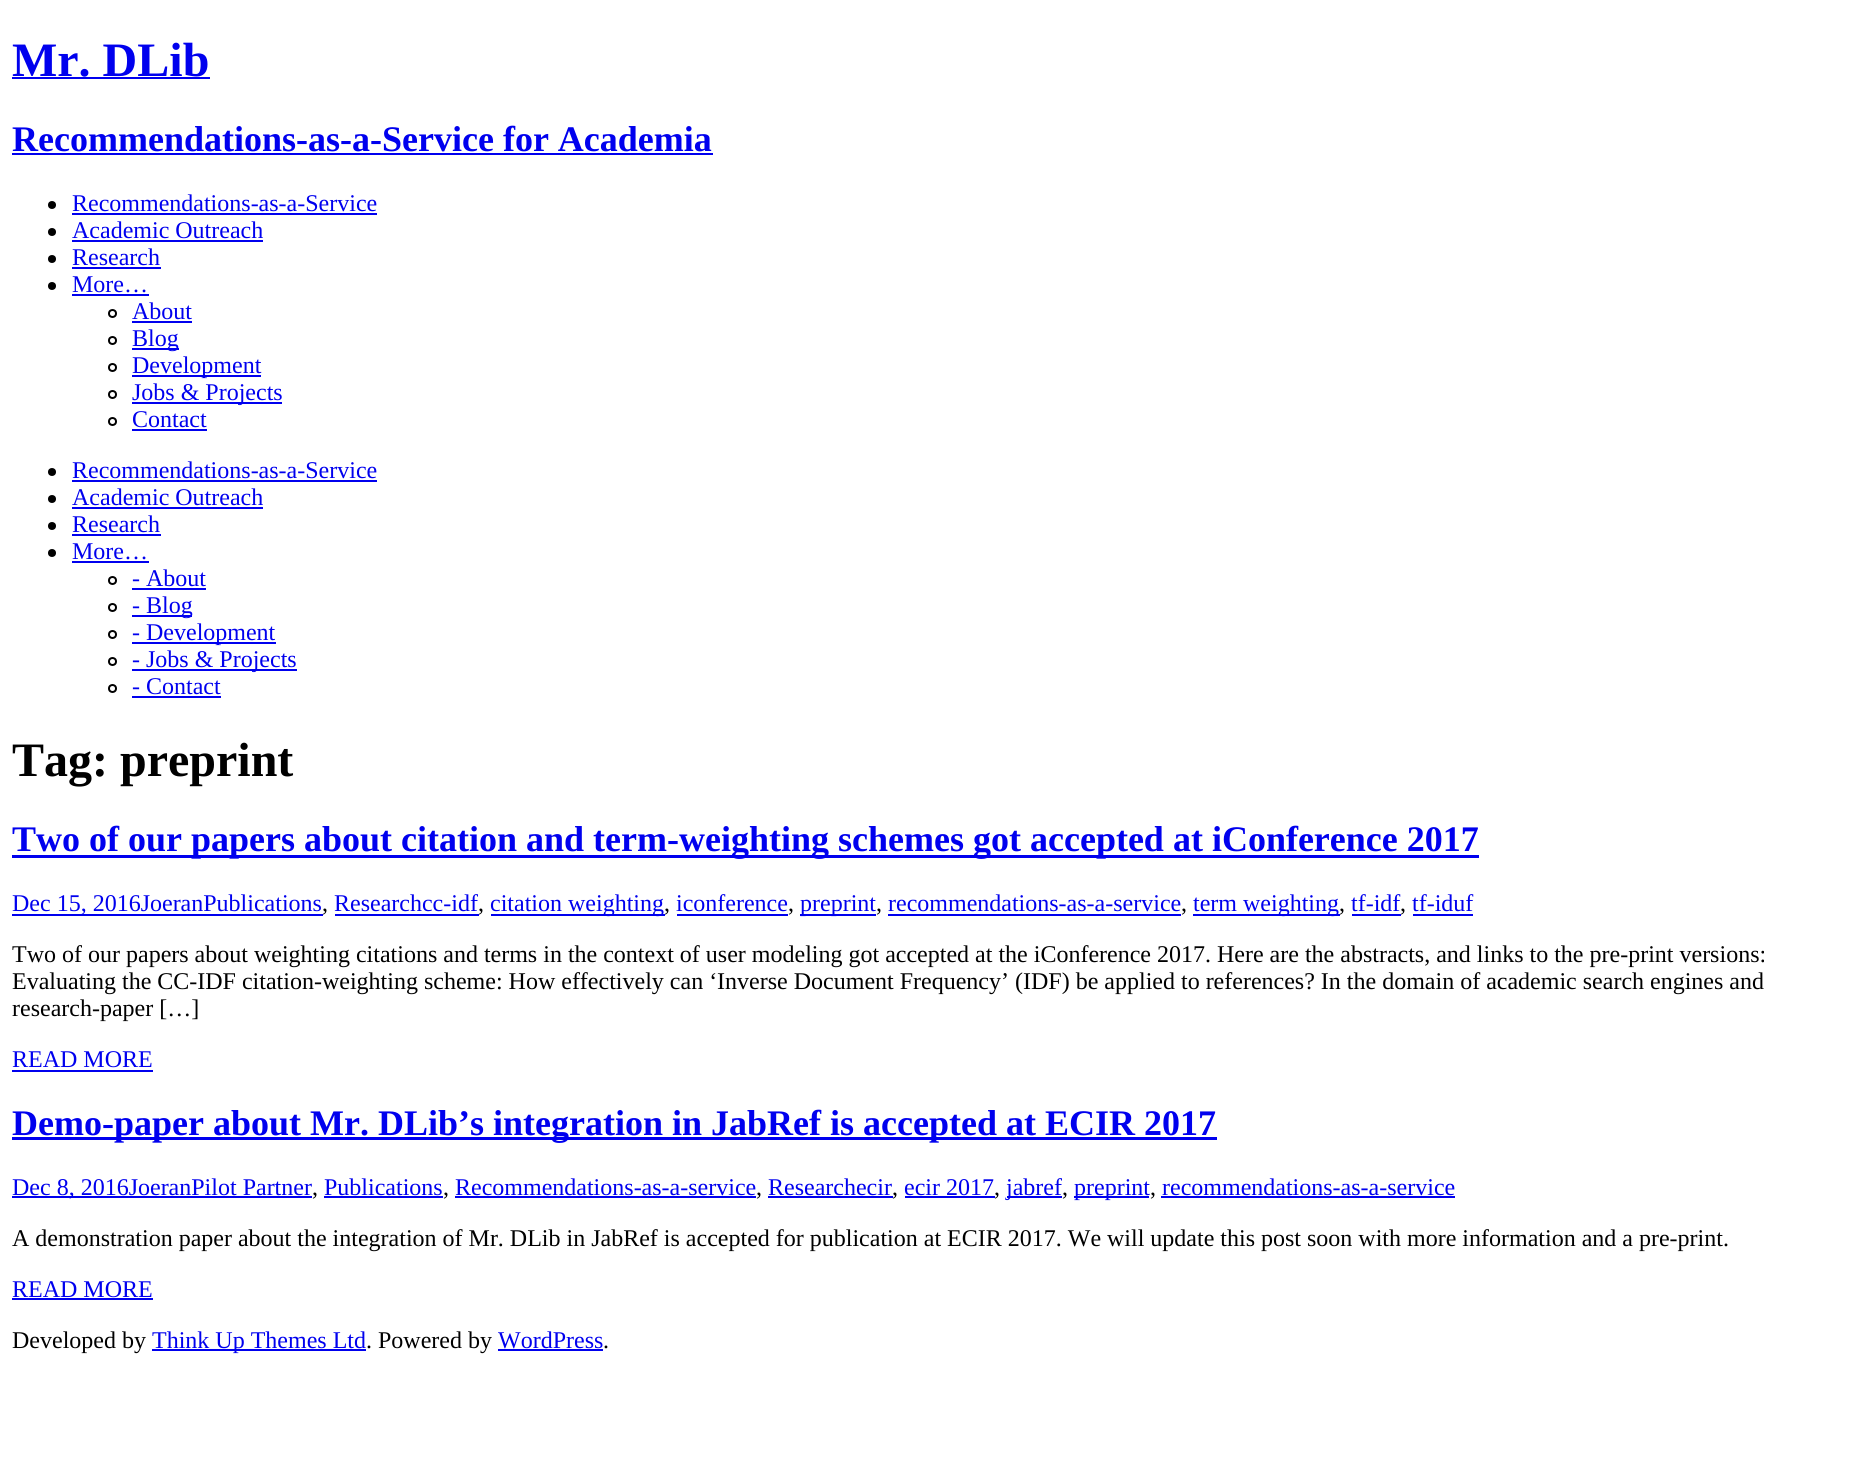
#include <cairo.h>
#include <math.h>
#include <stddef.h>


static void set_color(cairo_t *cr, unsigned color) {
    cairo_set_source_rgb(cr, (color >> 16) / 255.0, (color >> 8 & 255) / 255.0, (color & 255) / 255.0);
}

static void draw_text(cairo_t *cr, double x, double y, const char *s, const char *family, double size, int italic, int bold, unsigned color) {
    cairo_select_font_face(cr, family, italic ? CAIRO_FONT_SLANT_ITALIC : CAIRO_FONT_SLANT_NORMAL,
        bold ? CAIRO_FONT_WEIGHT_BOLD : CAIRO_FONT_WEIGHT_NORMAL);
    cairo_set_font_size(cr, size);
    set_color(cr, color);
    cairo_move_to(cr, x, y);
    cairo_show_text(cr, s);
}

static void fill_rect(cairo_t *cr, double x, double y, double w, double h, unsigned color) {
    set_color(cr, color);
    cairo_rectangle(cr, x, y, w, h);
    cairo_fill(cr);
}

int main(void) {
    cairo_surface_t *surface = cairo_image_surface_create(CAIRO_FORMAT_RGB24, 1858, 1460);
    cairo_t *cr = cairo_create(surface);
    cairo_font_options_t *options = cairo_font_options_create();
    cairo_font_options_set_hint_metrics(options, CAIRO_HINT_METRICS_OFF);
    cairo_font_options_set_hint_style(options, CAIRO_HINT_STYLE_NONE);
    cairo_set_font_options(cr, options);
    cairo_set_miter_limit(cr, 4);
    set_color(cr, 0xFFFFFF);
    cairo_paint(cr);
    draw_text(cr, 12, 76, "Mr. DLib", "Liberation Serif", 48, 0, 1, 0x0000EE);
    fill_rect(cr, 12, 77, 198, 2, 0x0000EE);
    draw_text(cr, 12, 151, "Recommendations-as-a-Service for Academia", "Liberation Serif", 36, 0, 1, 0x0000EE);
    fill_rect(cr, 12, 153, 701, 2, 0x0000EE);
    set_color(cr, 0x000000);
    cairo_new_path(cr);
    cairo_arc(cr, 52, 205, 4, 0, 2 * M_PI);
    cairo_fill(cr);
    draw_text(cr, 72, 211, "Recommendations-as-a-Service", "Liberation Serif", 24, 0, 0, 0x0000EE);
    fill_rect(cr, 72, 213, 305, 2, 0x0000EE);
    set_color(cr, 0x000000);
    cairo_new_path(cr);
    cairo_arc(cr, 52, 232, 4, 0, 2 * M_PI);
    cairo_fill(cr);
    draw_text(cr, 72, 238, "Academic Outreach", "Liberation Serif", 24, 0, 0, 0x0000EE);
    fill_rect(cr, 72, 240, 191, 2, 0x0000EE);
    set_color(cr, 0x000000);
    cairo_new_path(cr);
    cairo_arc(cr, 52, 259, 4, 0, 2 * M_PI);
    cairo_fill(cr);
    draw_text(cr, 72, 265, "Research", "Liberation Serif", 24, 0, 0, 0x0000EE);
    fill_rect(cr, 72, 267, 89, 2, 0x0000EE);
    set_color(cr, 0x000000);
    cairo_new_path(cr);
    cairo_arc(cr, 52, 286, 4, 0, 2 * M_PI);
    cairo_fill(cr);
    draw_text(cr, 72, 292, "More…", "Liberation Serif", 24, 0, 0, 0x0000EE);
    fill_rect(cr, 72, 294, 77, 2, 0x0000EE);
    cairo_new_path(cr);
    cairo_arc(cr, 112.5, 313.5, 3.5, 0, 2 * M_PI);
    set_color(cr, 0x000000);
    cairo_stroke(cr);
    draw_text(cr, 132, 319, "About", "Liberation Serif", 24, 0, 0, 0x0000EE);
    fill_rect(cr, 132, 321, 60, 2, 0x0000EE);
    cairo_new_path(cr);
    cairo_arc(cr, 112.5, 340.5, 3.5, 0, 2 * M_PI);
    set_color(cr, 0x000000);
    cairo_stroke(cr);
    fill_rect(cr, 132, 348, 47, 2, 0x0000EE);
    draw_text(cr, 132, 346, "Blog", "Liberation Serif", 24, 0, 0, 0x0000EE);
    cairo_new_path(cr);
    cairo_arc(cr, 112.5, 367.5, 3.5, 0, 2 * M_PI);
    set_color(cr, 0x000000);
    cairo_stroke(cr);
    fill_rect(cr, 132, 375, 129, 2, 0x0000EE);
    draw_text(cr, 132, 373, "Development", "Liberation Serif", 24, 0, 0, 0x0000EE);
    cairo_new_path(cr);
    cairo_arc(cr, 112.5, 394.5, 3.5, 0, 2 * M_PI);
    set_color(cr, 0x000000);
    cairo_stroke(cr);
    fill_rect(cr, 132, 402, 150, 2, 0x0000EE);
    draw_text(cr, 132, 400, "Jobs & Projects", "Liberation Serif", 24, 0, 0, 0x0000EE);
    cairo_new_path(cr);
    cairo_arc(cr, 112.5, 421.5, 3.5, 0, 2 * M_PI);
    set_color(cr, 0x000000);
    cairo_stroke(cr);
    draw_text(cr, 132, 427, "Contact", "Liberation Serif", 24, 0, 0, 0x0000EE);
    fill_rect(cr, 132, 429, 75, 2, 0x0000EE);
    set_color(cr, 0x000000);
    cairo_new_path(cr);
    cairo_arc(cr, 52, 472, 4, 0, 2 * M_PI);
    cairo_fill(cr);
    draw_text(cr, 72, 478, "Recommendations-as-a-Service", "Liberation Serif", 24, 0, 0, 0x0000EE);
    fill_rect(cr, 72, 480, 305, 2, 0x0000EE);
    set_color(cr, 0x000000);
    cairo_new_path(cr);
    cairo_arc(cr, 52, 499, 4, 0, 2 * M_PI);
    cairo_fill(cr);
    draw_text(cr, 72, 505, "Academic Outreach", "Liberation Serif", 24, 0, 0, 0x0000EE);
    fill_rect(cr, 72, 507, 191, 2, 0x0000EE);
    set_color(cr, 0x000000);
    cairo_new_path(cr);
    cairo_arc(cr, 52, 526, 4, 0, 2 * M_PI);
    cairo_fill(cr);
    draw_text(cr, 72, 532, "Research", "Liberation Serif", 24, 0, 0, 0x0000EE);
    fill_rect(cr, 72, 534, 89, 2, 0x0000EE);
    set_color(cr, 0x000000);
    cairo_new_path(cr);
    cairo_arc(cr, 52, 553, 4, 0, 2 * M_PI);
    cairo_fill(cr);
    draw_text(cr, 72, 559, "More…", "Liberation Serif", 24, 0, 0, 0x0000EE);
    fill_rect(cr, 72, 561, 77, 2, 0x0000EE);
    cairo_new_path(cr);
    cairo_arc(cr, 112.5, 580.5, 3.5, 0, 2 * M_PI);
    set_color(cr, 0x000000);
    cairo_stroke(cr);
    draw_text(cr, 132, 586, "- About", "Liberation Serif", 24, 0, 0, 0x0000EE);
    fill_rect(cr, 132, 588, 74, 2, 0x0000EE);
    cairo_new_path(cr);
    cairo_arc(cr, 112.5, 607.5, 3.5, 0, 2 * M_PI);
    set_color(cr, 0x000000);
    cairo_stroke(cr);
    fill_rect(cr, 132, 615, 60, 2, 0x0000EE);
    draw_text(cr, 132, 613, "- Blog", "Liberation Serif", 24, 0, 0, 0x0000EE);
    cairo_new_path(cr);
    cairo_arc(cr, 112.5, 634.5, 3.5, 0, 2 * M_PI);
    set_color(cr, 0x000000);
    cairo_stroke(cr);
    fill_rect(cr, 132, 642, 144, 2, 0x0000EE);
    draw_text(cr, 132, 640, "- Development", "Liberation Serif", 24, 0, 0, 0x0000EE);
    cairo_new_path(cr);
    cairo_arc(cr, 112.5, 661.5, 3.5, 0, 2 * M_PI);
    set_color(cr, 0x000000);
    cairo_stroke(cr);
    fill_rect(cr, 132, 669, 165, 2, 0x0000EE);
    draw_text(cr, 132, 667, "- Jobs & Projects", "Liberation Serif", 24, 0, 0, 0x0000EE);
    cairo_new_path(cr);
    cairo_arc(cr, 112.5, 688.5, 3.5, 0, 2 * M_PI);
    set_color(cr, 0x000000);
    cairo_stroke(cr);
    draw_text(cr, 132, 694, "- Contact", "Liberation Serif", 24, 0, 0, 0x0000EE);
    fill_rect(cr, 132, 696, 89, 2, 0x0000EE);
    draw_text(cr, 12, 776, "Tag: preprint", "Liberation Serif", 48, 0, 1, 0x000000);
    fill_rect(cr, 12, 855, 1467, 3, 0x0000EE);
    draw_text(cr, 12, 851, "Two of our papers about citation and term-weighting schemes got accepted at iConference 2017", "Liberation Serif", 36, 0, 1, 0x0000EE);
    fill_rect(cr, 12, 914, 311, 2, 0x0000EE);
    draw_text(cr, 12, 911, "Dec 15, 2016JoeranPublications", "Liberation Serif", 24, 0, 0, 0x0000EE);
    draw_text(cr, 322, 911, ",", "Liberation Serif", 24, 0, 0, 0x000000);
    fill_rect(cr, 335, 914, 144, 2, 0x0000EE);
    draw_text(cr, 334, 911, "Researchcc-idf", "Liberation Serif", 24, 0, 0, 0x0000EE);
    draw_text(cr, 478, 911, ",", "Liberation Serif", 24, 0, 0, 0x000000);
    fill_rect(cr, 491, 914, 174, 2, 0x0000EE);
    draw_text(cr, 490, 911, "citation weighting", "Liberation Serif", 24, 0, 0, 0x0000EE);
    draw_text(cr, 664, 911, ",", "Liberation Serif", 24, 0, 0, 0x000000);
    draw_text(cr, 676, 911, "iconference", "Liberation Serif", 24, 0, 0, 0x0000EE);
    draw_text(cr, 788, 911, ",", "Liberation Serif", 24, 0, 0, 0x000000);
    fill_rect(cr, 677, 914, 111, 2, 0x0000EE);
    fill_rect(cr, 800, 914, 76, 2, 0x0000EE);
    draw_text(cr, 800, 911, "preprint", "Liberation Serif", 24, 0, 0, 0x0000EE);
    draw_text(cr, 876, 911, ",", "Liberation Serif", 24, 0, 0, 0x000000);
    draw_text(cr, 888, 911, "recommendations-as-a-service", "Liberation Serif", 24, 0, 0, 0x0000EE);
    draw_text(cr, 1181, 911, ",", "Liberation Serif", 24, 0, 0, 0x000000);
    fill_rect(cr, 888, 914, 293, 2, 0x0000EE);
    fill_rect(cr, 1193, 914, 147, 2, 0x0000EE);
    draw_text(cr, 1193, 911, "term weighting", "Liberation Serif", 24, 0, 0, 0x0000EE);
    draw_text(cr, 1339, 911, ",", "Liberation Serif", 24, 0, 0, 0x000000);
    draw_text(cr, 1351, 911, "tf-idf", "Liberation Serif", 24, 0, 0, 0x0000EE);
    draw_text(cr, 1400, 911, ",", "Liberation Serif", 24, 0, 0, 0x000000);
    fill_rect(cr, 1352, 914, 49, 2, 0x0000EE);
    fill_rect(cr, 1413, 914, 60, 2, 0x0000EE);
    draw_text(cr, 1412, 911, "tf-iduf", "Liberation Serif", 24, 0, 0, 0x0000EE);
    draw_text(cr, 12, 962, "Two of our papers about weighting citations and terms in the context of user modeling got accepted at the iConference 2017. Here are the abstracts, and links to the pre-print versions:", "Liberation Serif", 24, 0, 0, 0x000000);
    draw_text(cr, 12, 989, "Evaluating the CC-IDF citation-weighting scheme: How effectively can ‘Inverse Document Frequency’ (IDF) be applied to references? In the domain of academic search engines and", "Liberation Serif", 24, 0, 0, 0x000000);
    draw_text(cr, 12, 1016, "research-paper […]", "Liberation Serif", 24, 0, 0, 0x000000);
    draw_text(cr, 12, 1067, "READ MORE", "Liberation Serif", 24, 0, 0, 0x0000EE);
    fill_rect(cr, 12, 1070, 141, 2, 0x0000EE);
    fill_rect(cr, 12, 1137, 1205, 3, 0x0000EE);
    draw_text(cr, 12, 1135, "Demo-paper about Mr. DLib’s integration in JabRef is accepted at ECIR 2017", "Liberation Serif", 36, 0, 1, 0x0000EE);
    fill_rect(cr, 12, 1196, 300, 2, 0x0000EE);
    draw_text(cr, 12, 1195, "Dec 8, 2016JoeranPilot Partner", "Liberation Serif", 24, 0, 0, 0x0000EE);
    draw_text(cr, 312, 1195, ",", "Liberation Serif", 24, 0, 0, 0x000000);
    draw_text(cr, 324, 1195, "Publications", "Liberation Serif", 24, 0, 0, 0x0000EE);
    draw_text(cr, 443, 1195, ",", "Liberation Serif", 24, 0, 0, 0x000000);
    fill_rect(cr, 324, 1196, 119, 2, 0x0000EE);
    draw_text(cr, 455, 1195, "Recommendations-as-a-service", "Liberation Serif", 24, 0, 0, 0x0000EE);
    draw_text(cr, 756, 1195, ",", "Liberation Serif", 24, 0, 0, 0x000000);
    fill_rect(cr, 455, 1196, 301, 2, 0x0000EE);
    fill_rect(cr, 768, 1196, 125, 2, 0x0000EE);
    draw_text(cr, 768, 1195, "Researchecir", "Liberation Serif", 24, 0, 0, 0x0000EE);
    draw_text(cr, 892, 1195, ",", "Liberation Serif", 24, 0, 0, 0x000000);
    draw_text(cr, 904, 1195, "ecir 2017", "Liberation Serif", 24, 0, 0, 0x0000EE);
    fill_rect(cr, 905, 1196, 90, 2, 0x0000EE);
    draw_text(cr, 994, 1195, ",", "Liberation Serif", 24, 0, 0, 0x000000);
    fill_rect(cr, 1007, 1196, 55, 2, 0x0000EE);
    draw_text(cr, 1006, 1195, "jabref", "Liberation Serif", 24, 0, 0, 0x0000EE);
    draw_text(cr, 1062, 1195, ",", "Liberation Serif", 24, 0, 0, 0x000000);
    fill_rect(cr, 1074, 1196, 75, 2, 0x0000EE);
    draw_text(cr, 1074, 1195, "preprint", "Liberation Serif", 24, 0, 0, 0x0000EE);
    draw_text(cr, 1150, 1195, ",", "Liberation Serif", 24, 0, 0, 0x000000);
    fill_rect(cr, 1161, 1196, 294, 2, 0x0000EE);
    draw_text(cr, 1162, 1195, "recommendations-as-a-service", "Liberation Serif", 24, 0, 0, 0x0000EE);
    draw_text(cr, 12, 1246, "A demonstration paper about the integration of Mr. DLib in JabRef is accepted for publication at ECIR 2017. We will update this post soon with more information and a pre-print.", "Liberation Serif", 24, 0, 0, 0x000000);
    draw_text(cr, 12, 1297, "READ MORE", "Liberation Serif", 24, 0, 0, 0x0000EE);
    fill_rect(cr, 12, 1298, 141, 2, 0x0000EE);
    draw_text(cr, 12, 1348, "Developed by", "Liberation Serif", 24, 0, 0, 0x000000);
    fill_rect(cr, 152, 1349, 214, 2, 0x0000EE);
    draw_text(cr, 152, 1348, "Think Up Themes Ltd", "Liberation Serif", 24, 0, 0, 0x0000EE);
    draw_text(cr, 366, 1348, ". Powered by", "Liberation Serif", 24, 0, 0, 0x000000);
    draw_text(cr, 498, 1348, "WordPress", "Liberation Serif", 24, 0, 0, 0x0000EE);
    fill_rect(cr, 498, 1349, 105, 2, 0x0000EE);
    draw_text(cr, 603, 1348, ".", "Liberation Serif", 24, 0, 0, 0x000000);
    cairo_surface_write_to_png(surface, "output.png");
    cairo_font_options_destroy(options);
    cairo_destroy(cr);
    cairo_surface_destroy(surface);
    return 0;
}
